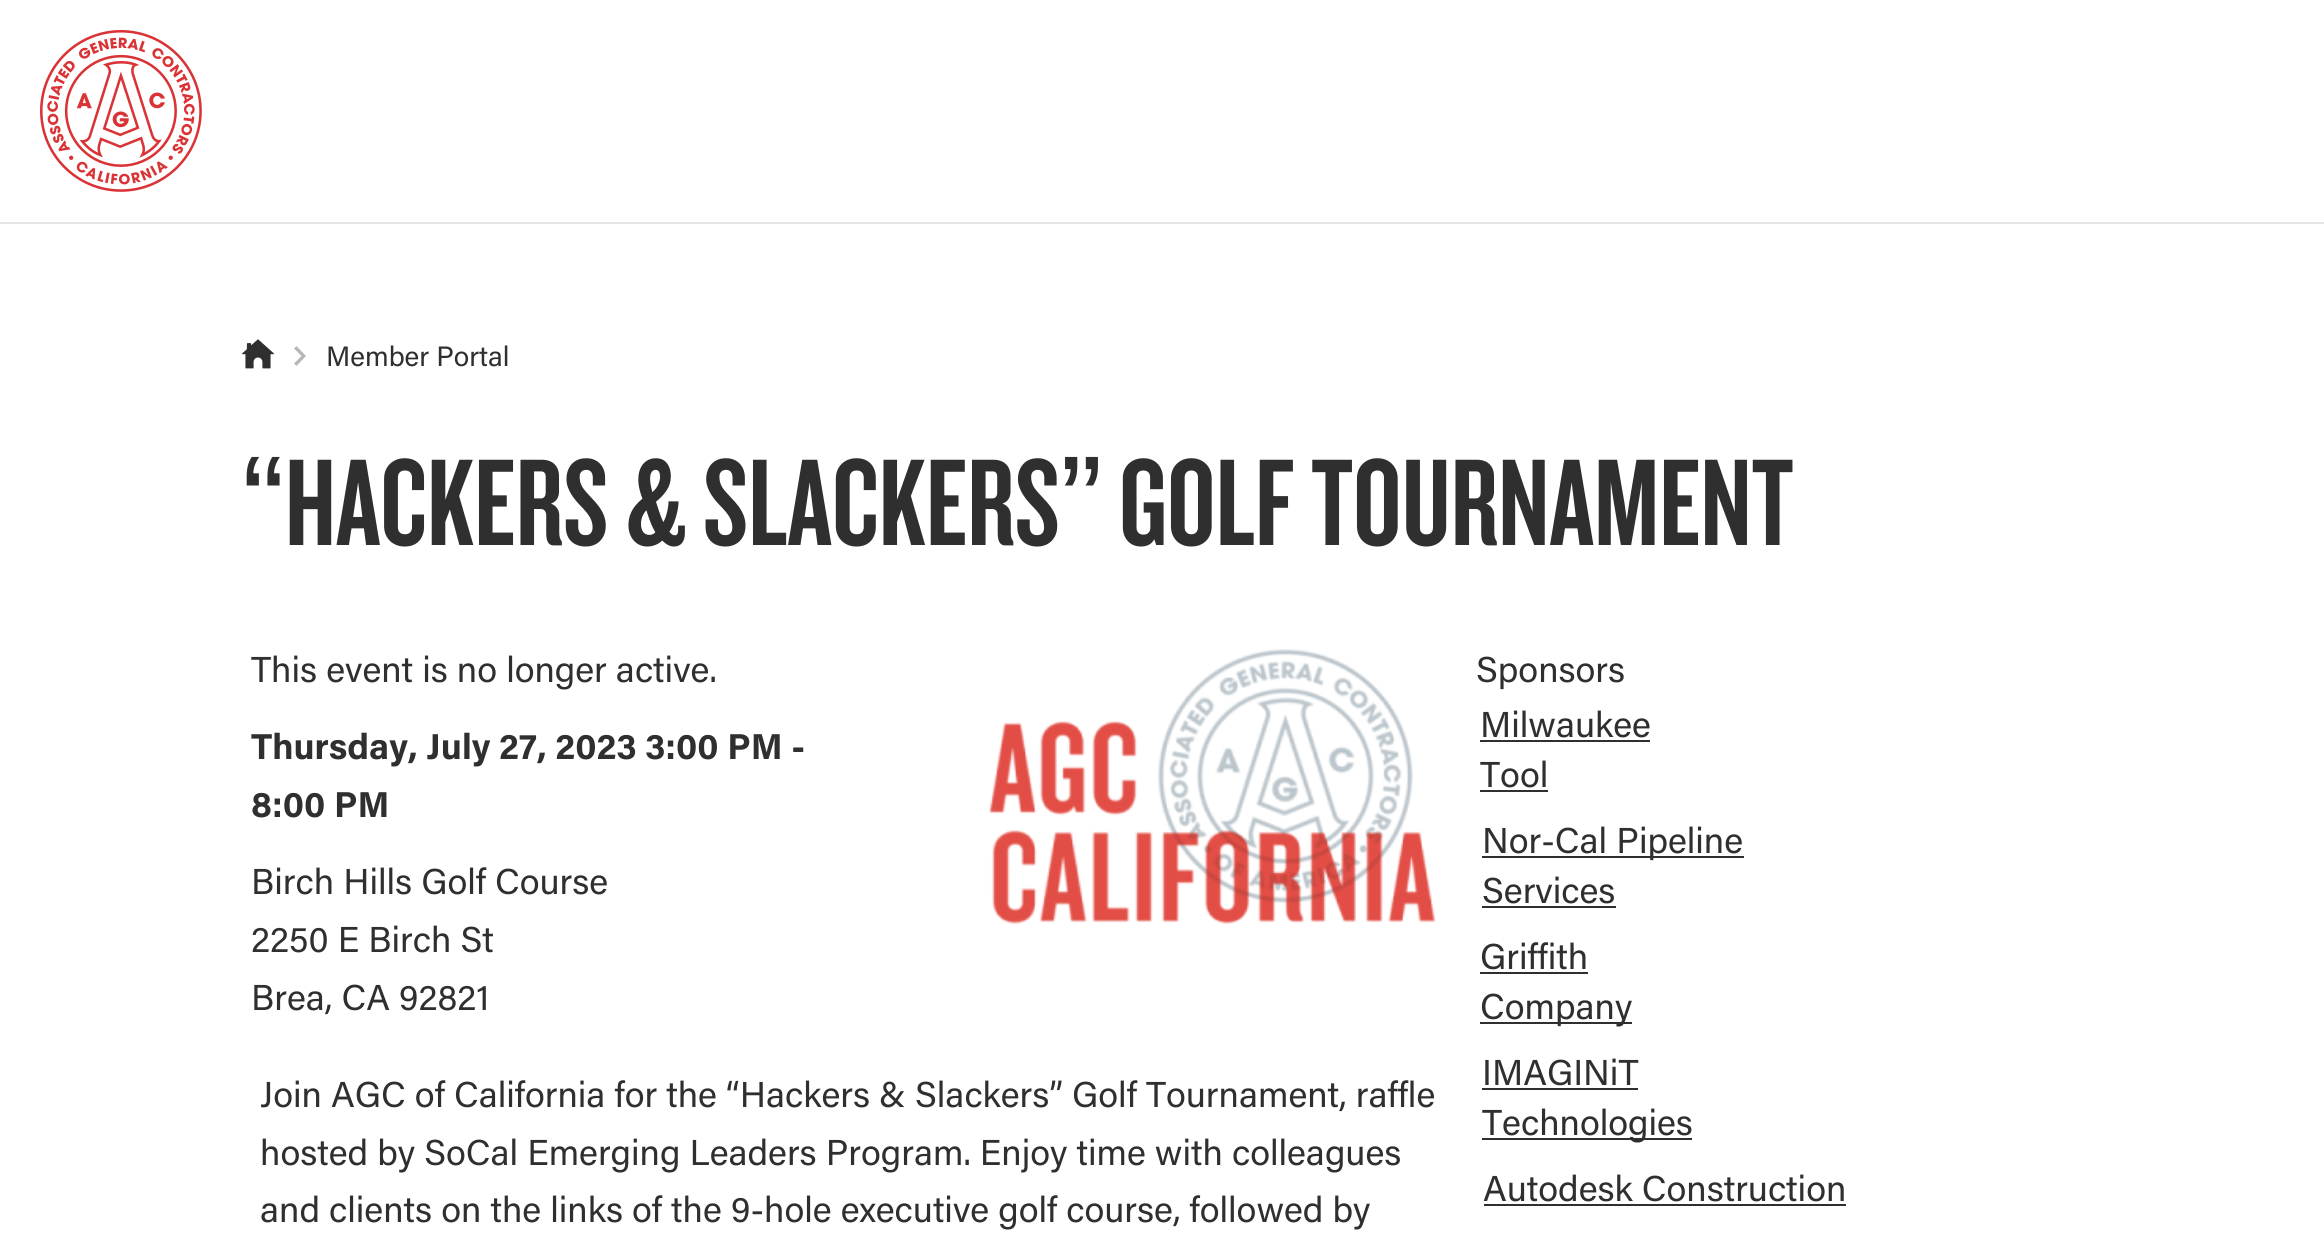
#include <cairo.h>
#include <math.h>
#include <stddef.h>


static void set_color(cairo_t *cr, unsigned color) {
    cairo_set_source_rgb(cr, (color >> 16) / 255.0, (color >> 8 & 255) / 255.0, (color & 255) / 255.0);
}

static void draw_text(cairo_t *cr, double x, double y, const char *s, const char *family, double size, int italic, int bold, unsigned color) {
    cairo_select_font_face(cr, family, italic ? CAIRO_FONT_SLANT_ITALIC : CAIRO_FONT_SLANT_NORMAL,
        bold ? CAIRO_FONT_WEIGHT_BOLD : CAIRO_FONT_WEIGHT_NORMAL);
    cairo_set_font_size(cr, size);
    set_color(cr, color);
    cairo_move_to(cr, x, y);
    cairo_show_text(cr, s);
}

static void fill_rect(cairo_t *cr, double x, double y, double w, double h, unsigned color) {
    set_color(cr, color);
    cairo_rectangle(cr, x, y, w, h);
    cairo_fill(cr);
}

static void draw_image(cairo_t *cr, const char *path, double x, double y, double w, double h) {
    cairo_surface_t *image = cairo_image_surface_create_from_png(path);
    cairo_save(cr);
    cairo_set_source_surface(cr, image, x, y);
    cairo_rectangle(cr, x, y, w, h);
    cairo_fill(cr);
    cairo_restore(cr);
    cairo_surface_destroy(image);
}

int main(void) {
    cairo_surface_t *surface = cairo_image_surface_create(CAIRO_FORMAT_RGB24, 2324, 1241);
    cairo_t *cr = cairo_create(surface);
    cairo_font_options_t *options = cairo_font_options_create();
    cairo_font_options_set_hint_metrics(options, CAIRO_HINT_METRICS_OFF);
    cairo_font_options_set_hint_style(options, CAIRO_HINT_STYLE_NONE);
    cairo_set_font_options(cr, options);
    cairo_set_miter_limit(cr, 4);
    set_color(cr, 0xFFFFFF);
    cairo_paint(cr);
    fill_rect(cr, 0, 222, 2324, 2, 0xE5E5E5);
    draw_image(cr, "assets/img1.png", 40, 30, 162, 162);
    draw_image(cr, "assets/img2.png", 242, 339, 32, 30);
    set_color(cr, 0xB6B7B8);
    cairo_new_path(cr);
    cairo_move_to(cr, 301.5, 356);
    cairo_line_to(cr, 294, 363.5);
    cairo_line_to(cr, 296.5, 366);
    cairo_line_to(cr, 306, 356);
    cairo_line_to(cr, 296.5, 346);
    cairo_line_to(cr, 294, 348.5);
    cairo_close_path(cr);
    cairo_fill(cr);
    draw_text(cr, 326, 366, "Member Portal", "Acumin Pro", 28, 0, 0, 0x302F2F);
    draw_text(cr, 242, 545, "“", "Liberation Sans", 128, 0, 0, 0x302F2F);
    draw_text(cr, 285, 545, "HACKERS & SLACKERS", "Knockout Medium", 128, 0, 0, 0x302F2F);
    draw_text(cr, 1060, 545, "”", "Liberation Sans", 128, 0, 0, 0x302F2F);
    draw_text(cr, 1119, 545, "GOLF TOURNAMENT", "Knockout Medium", 128, 0, 0, 0x302F2F);
    draw_text(cr, 251, 682, "This event is no longer active.", "Acumin Pro", 36, 0, 0, 0x302F2F);
    draw_text(cr, 251, 759, "Thursday, July 27, 2023 3:00 PM -", "Acumin Pro", 36, 0, 1, 0x302F2F);
    draw_text(cr, 251, 817, "8:00 PM", "Acumin Pro", 36, 0, 1, 0x302F2F);
    draw_text(cr, 251, 894, "Birch Hills Golf Course", "Acumin Pro", 36, 0, 0, 0x302F2F);
    draw_text(cr, 251, 952, "2250 E Birch St", "Acumin Pro", 36, 0, 0, 0x302F2F);
    draw_text(cr, 251, 1010, "Brea, CA 92821", "Acumin Pro", 36, 0, 0, 0x302F2F);
    draw_image(cr, "assets/img3.png", 989, 649, 447, 276);
    draw_text(cr, 260, 1107, "Join AGC of California for the “Hackers & Slackers” Golf Tournament, raffle", "Acumin Pro", 36, 0, 0, 0x302F2F);
    draw_text(cr, 260, 1165, "hosted by SoCal Emerging Leaders Program. Enjoy time with colleagues", "Acumin Pro", 36, 0, 0, 0x302F2F);
    draw_text(cr, 260, 1222, "and clients on the links of the 9-hole executive golf course, followed by", "Acumin Pro", 36, 0, 0, 0x302F2F);
    draw_text(cr, 1476, 682, "Sponsors", "Acumin Pro", 36, 0, 0, 0x302F2F);
    draw_text(cr, 1480, 737, "Milwaukee", "Acumin Pro", 36, 0, 0, 0x302F2F);
    fill_rect(cr, 1480, 740, 170, 2, 0x302F2F);
    draw_text(cr, 1480, 787, "Tool", "Acumin Pro", 36, 0, 0, 0x302F2F);
    fill_rect(cr, 1480, 790, 68, 2, 0x302F2F);
    fill_rect(cr, 1482, 856, 262, 2, 0x302F2F);
    draw_text(cr, 1482, 853, "Nor-Cal Pipeline", "Acumin Pro", 36, 0, 0, 0x302F2F);
    draw_text(cr, 1482, 903, "Services", "Acumin Pro", 36, 0, 0, 0x302F2F);
    fill_rect(cr, 1482, 906, 134, 2, 0x302F2F);
    draw_text(cr, 1480, 969, "Griffith", "Acumin Pro", 36, 0, 0, 0x302F2F);
    fill_rect(cr, 1480, 972, 108, 2, 0x302F2F);
    fill_rect(cr, 1480, 1022, 152, 2, 0x302F2F);
    draw_text(cr, 1480, 1019, "Company", "Acumin Pro", 36, 0, 0, 0x302F2F);
    draw_text(cr, 1482, 1085, "IMAGINiT", "Acumin Pro", 36, 0, 0, 0x302F2F);
    fill_rect(cr, 1482, 1088, 156, 2, 0x302F2F);
    fill_rect(cr, 1482, 1138, 210, 2, 0x302F2F);
    draw_text(cr, 1482, 1135, "Technologies", "Acumin Pro", 36, 0, 0, 0x302F2F);
    draw_text(cr, 1483, 1201, "Autodesk Construction", "Acumin Pro", 36, 0, 0, 0x302F2F);
    fill_rect(cr, 1484, 1204, 362, 2, 0x302F2F);
    cairo_surface_write_to_png(surface, "output.png");
    cairo_font_options_destroy(options);
    cairo_destroy(cr);
    cairo_surface_destroy(surface);
    return 0;
}
